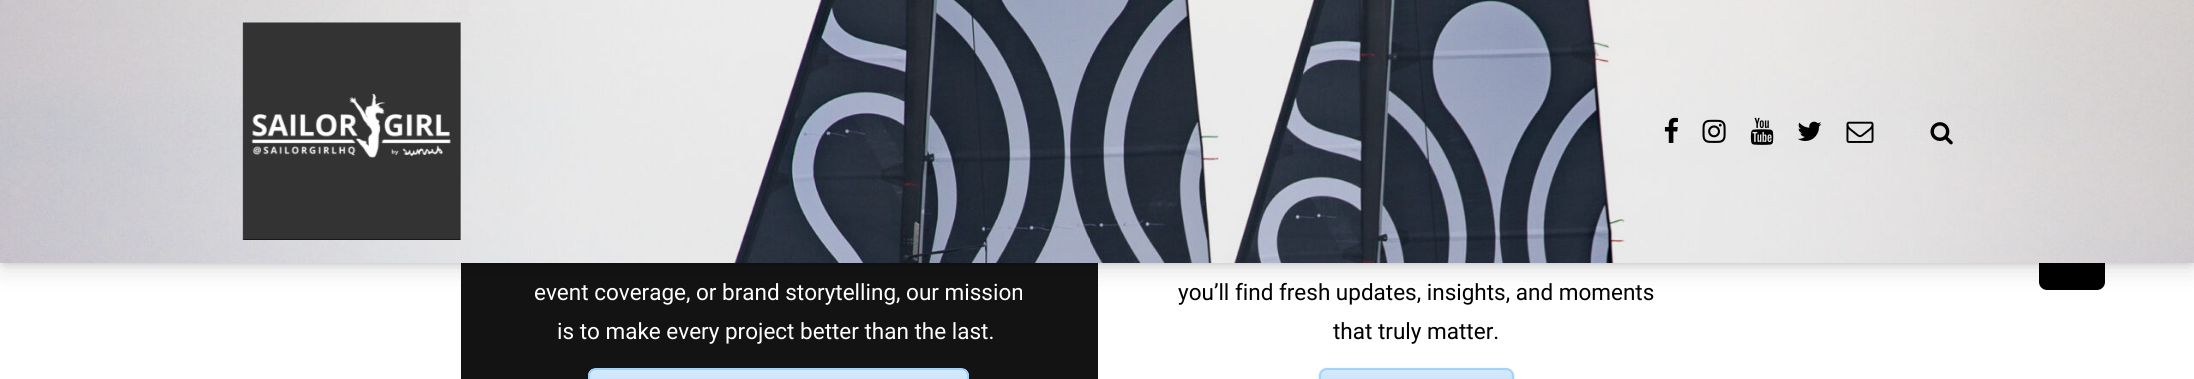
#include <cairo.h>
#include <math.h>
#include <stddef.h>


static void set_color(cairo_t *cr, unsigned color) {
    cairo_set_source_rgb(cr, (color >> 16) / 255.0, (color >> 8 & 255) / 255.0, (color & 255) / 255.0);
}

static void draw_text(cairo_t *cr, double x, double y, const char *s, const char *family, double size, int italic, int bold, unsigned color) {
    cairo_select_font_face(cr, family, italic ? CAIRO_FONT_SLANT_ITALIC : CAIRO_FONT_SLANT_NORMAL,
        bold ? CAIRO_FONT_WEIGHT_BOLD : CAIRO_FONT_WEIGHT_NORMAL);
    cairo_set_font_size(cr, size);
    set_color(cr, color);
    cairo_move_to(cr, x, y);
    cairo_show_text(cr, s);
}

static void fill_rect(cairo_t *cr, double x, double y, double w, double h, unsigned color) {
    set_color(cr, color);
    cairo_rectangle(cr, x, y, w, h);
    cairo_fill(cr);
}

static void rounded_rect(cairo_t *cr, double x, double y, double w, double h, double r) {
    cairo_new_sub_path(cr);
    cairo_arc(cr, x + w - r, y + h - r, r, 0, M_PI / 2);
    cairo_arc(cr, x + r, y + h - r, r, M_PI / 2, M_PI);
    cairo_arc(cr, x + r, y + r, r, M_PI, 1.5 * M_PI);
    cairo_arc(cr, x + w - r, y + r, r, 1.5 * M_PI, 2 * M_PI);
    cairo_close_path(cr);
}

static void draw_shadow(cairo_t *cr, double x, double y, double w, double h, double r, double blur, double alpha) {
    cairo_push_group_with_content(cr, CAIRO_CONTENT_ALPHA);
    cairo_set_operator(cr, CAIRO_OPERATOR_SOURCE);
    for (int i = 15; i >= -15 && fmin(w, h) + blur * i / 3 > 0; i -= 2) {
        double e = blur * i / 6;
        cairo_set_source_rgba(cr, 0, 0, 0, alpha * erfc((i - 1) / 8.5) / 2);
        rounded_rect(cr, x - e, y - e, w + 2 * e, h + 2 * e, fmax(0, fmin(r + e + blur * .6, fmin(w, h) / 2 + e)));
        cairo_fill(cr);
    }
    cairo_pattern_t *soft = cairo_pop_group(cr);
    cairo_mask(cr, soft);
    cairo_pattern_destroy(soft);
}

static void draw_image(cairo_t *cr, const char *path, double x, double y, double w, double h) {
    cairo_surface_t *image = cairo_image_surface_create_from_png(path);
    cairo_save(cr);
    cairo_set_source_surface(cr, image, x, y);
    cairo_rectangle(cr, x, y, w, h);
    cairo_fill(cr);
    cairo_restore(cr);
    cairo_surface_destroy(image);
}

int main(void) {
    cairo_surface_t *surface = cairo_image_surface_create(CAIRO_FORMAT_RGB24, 2194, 379);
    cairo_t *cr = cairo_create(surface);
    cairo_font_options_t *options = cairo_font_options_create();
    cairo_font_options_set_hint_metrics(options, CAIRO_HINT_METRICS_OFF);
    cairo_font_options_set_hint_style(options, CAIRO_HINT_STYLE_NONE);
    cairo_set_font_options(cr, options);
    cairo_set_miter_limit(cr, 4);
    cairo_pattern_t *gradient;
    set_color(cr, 0xFFFFFF);
    cairo_paint(cr);
    set_color(cr, 0x000000);
    rounded_rect(cr, 2039, 224, 66, 66, 8);
    cairo_fill(cr);
    fill_rect(cr, 461, 263, 637, 116, 0x131313);
    set_color(cr, 0x000000);
    draw_shadow(cr, 3, 11, 2189, 256, 0, 13, 0.15);
    draw_shadow(cr, 3, 6, 2189, 257, 0, 4, 0.15);
    draw_image(cr, "assets/img1.png", 0, 0, 2194, 263);
    draw_image(cr, "assets/img2.png", 242, 22, 219, 218);
    draw_image(cr, "assets/img3.png", 1664, 117, 14, 26);
    draw_image(cr, "assets/img4.png", 1702, 119, 24, 24);
    draw_image(cr, "assets/img5.png", 1750, 117, 24, 28);
    draw_image(cr, "assets/img6.png", 1797, 121, 25, 20);
    draw_image(cr, "assets/img7.png", 1846, 121, 28, 22);
    fill_rect(cr, 1907, 119, 2, 28, 0xE2E3E7);
    draw_image(cr, "assets/img8.png", 1930, 122, 23, 23);
    draw_text(cr, 534, 300, "event coverage, or brand storytelling, our mission", "Roboto", 22.5, 0, 0, 0xFFFFFF);
    draw_text(cr, 557, 339, "is to make every project better than the last.", "Roboto", 22.5, 0, 0, 0xFFFFFF);
    cairo_save(cr);
    rounded_rect(cr, 588, 368, 381, 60, 8);
    cairo_clip(cr);
    gradient = cairo_pattern_create_linear(779, 369, 779, 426);
    cairo_pattern_add_color_stop_rgba(gradient, 0, 0.827, 0.918, 0.988, 1);
    cairo_pattern_add_color_stop_rgba(gradient, 1, 0.639, 0.824, 0.98, 1);
    cairo_set_source(cr, gradient);
    cairo_pattern_destroy(gradient);
    cairo_rectangle(cr, 588, 369, 381, 10);
    cairo_fill(cr);
    cairo_restore(cr);
    rounded_rect(cr, 589, 369, 379, 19, 7);
    set_color(cr, 0xA3D2FA);
    cairo_stroke(cr);
    draw_text(cr, 1178, 300, "you’ll find fresh updates, insights, and moments", "Roboto", 22.5, 0, 0, 0x000000);
    draw_text(cr, 1333, 339, "that truly matter.", "Roboto", 22.5, 0, 0, 0x000000);
    set_color(cr, 0x000000);
    draw_shadow(cr, 1319, 369, 195, 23, 8, 1.5, 0.15);
    cairo_save(cr);
    rounded_rect(cr, 1319, 368, 195, 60, 8);
    cairo_clip(cr);
    gradient = cairo_pattern_create_linear(1416, 369, 1416, 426);
    cairo_pattern_add_color_stop_rgba(gradient, 0, 0.827, 0.918, 0.988, 1);
    cairo_pattern_add_color_stop_rgba(gradient, 1, 0.639, 0.824, 0.98, 1);
    cairo_set_source(cr, gradient);
    cairo_pattern_destroy(gradient);
    cairo_rectangle(cr, 1319, 369, 195, 10);
    cairo_fill(cr);
    cairo_restore(cr);
    rounded_rect(cr, 1320, 369, 193, 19, 7);
    set_color(cr, 0xA3D2FA);
    cairo_stroke(cr);
    cairo_surface_write_to_png(surface, "output.png");
    cairo_font_options_destroy(options);
    cairo_destroy(cr);
    cairo_surface_destroy(surface);
    return 0;
}
